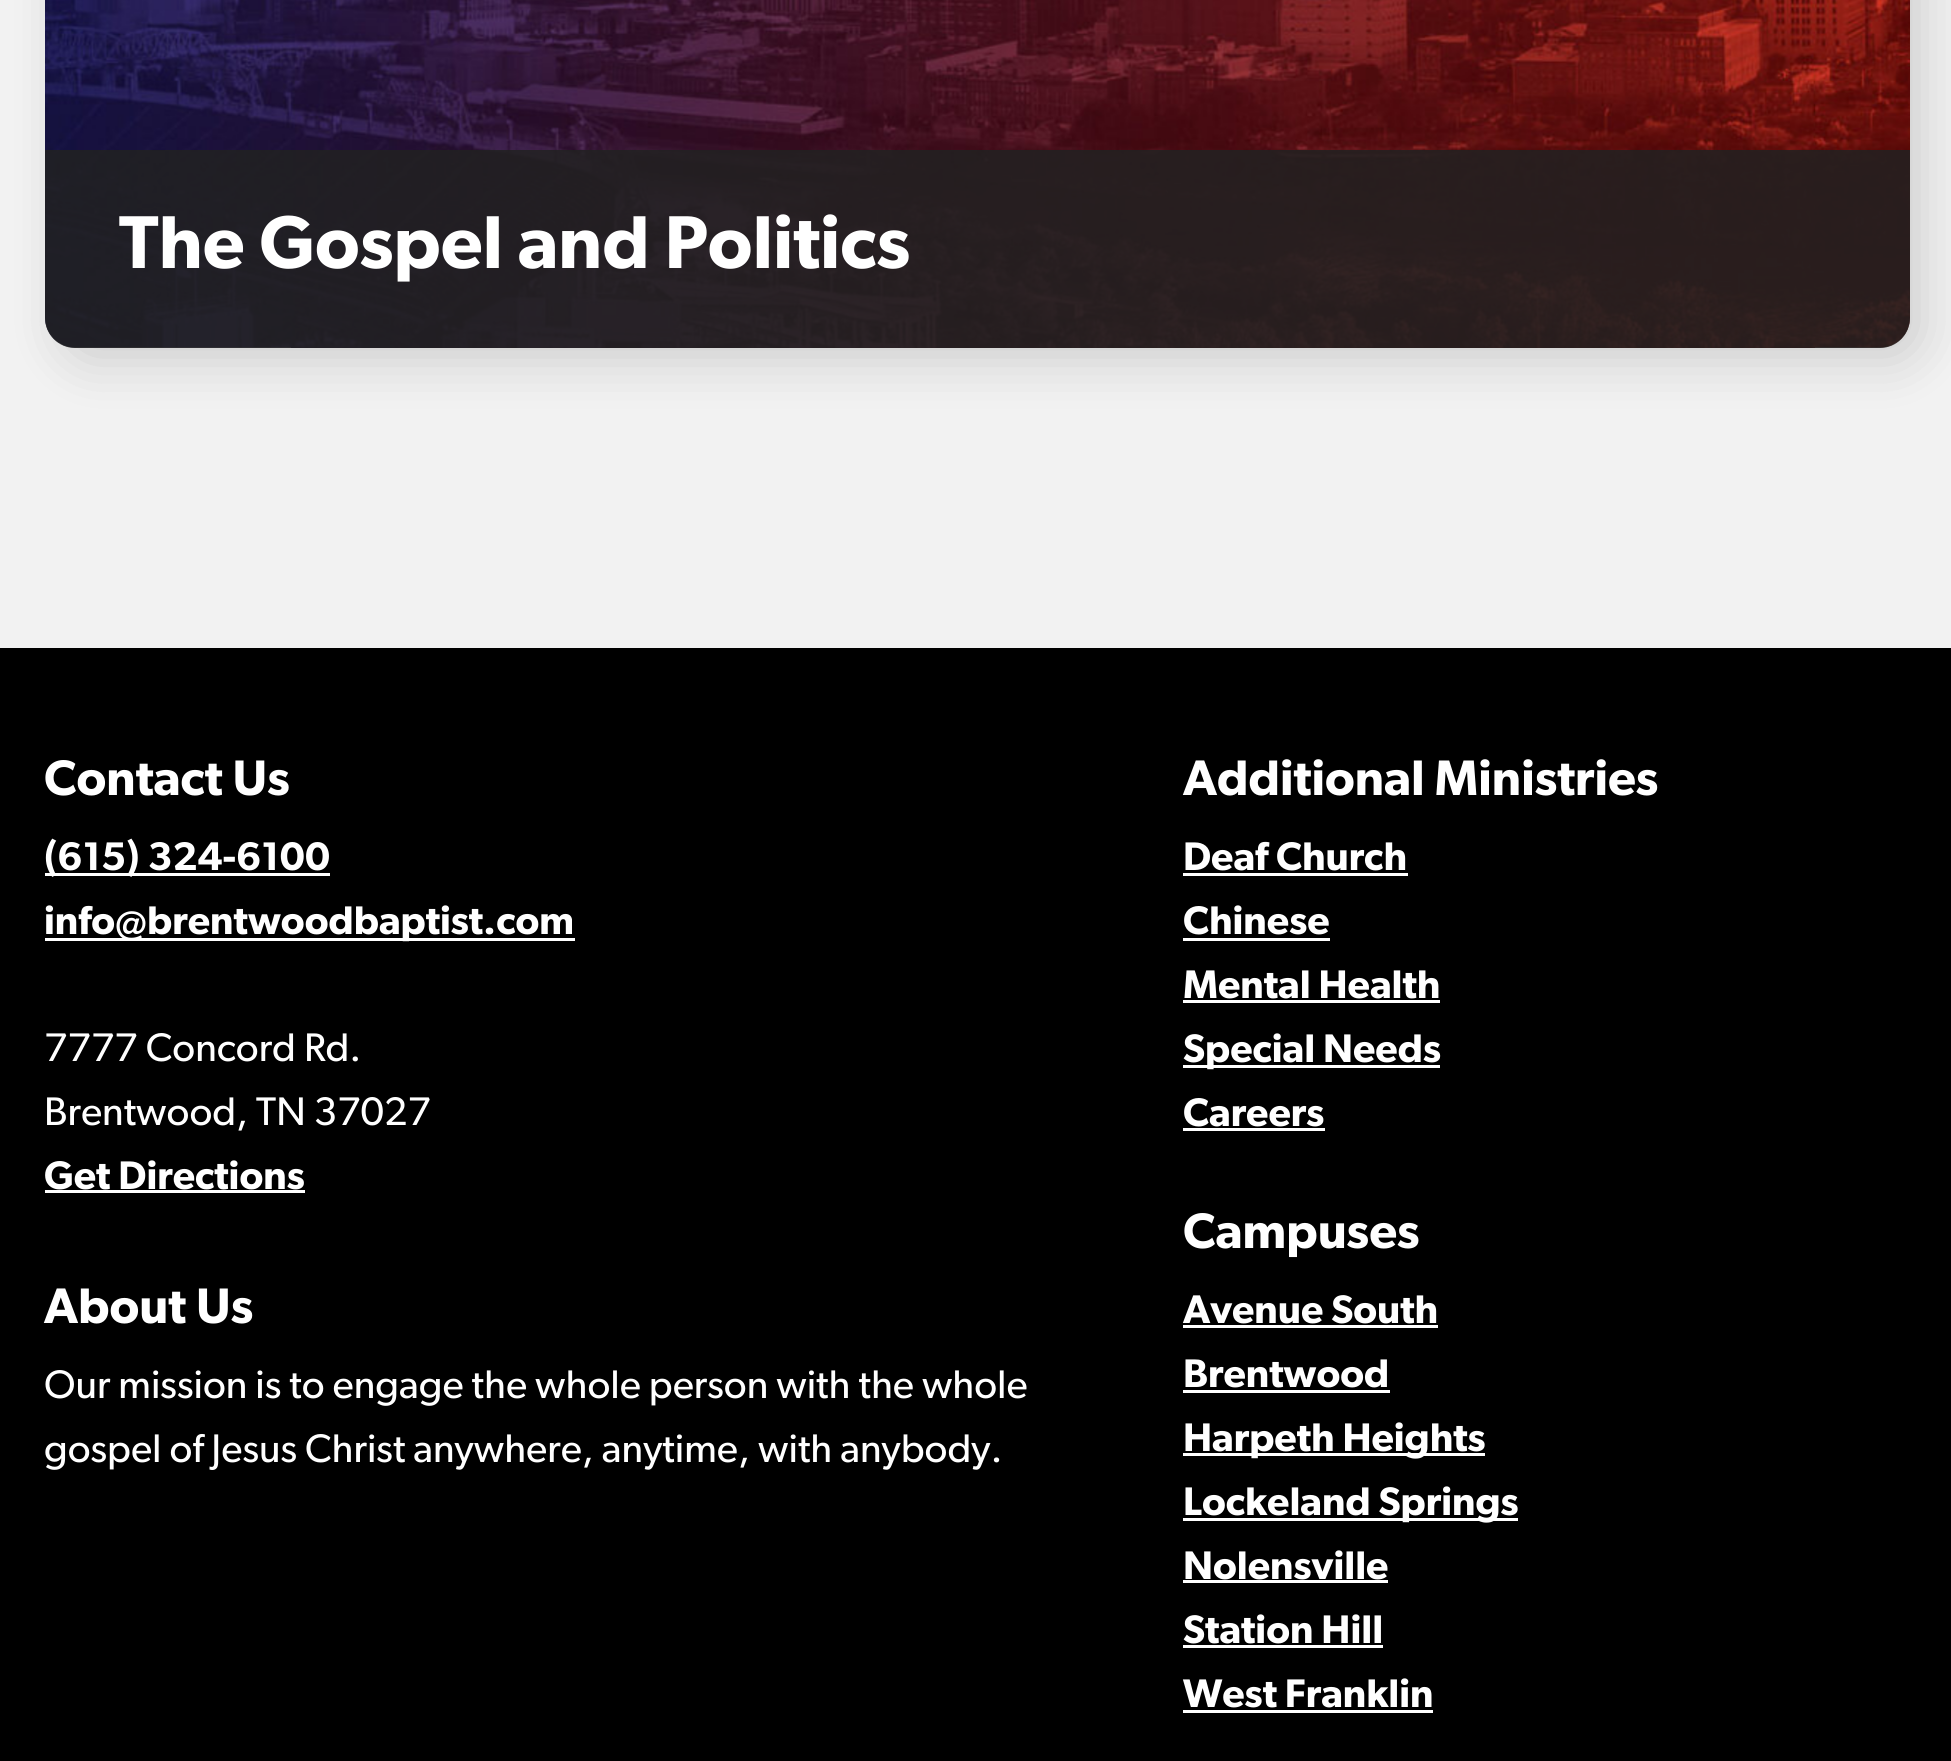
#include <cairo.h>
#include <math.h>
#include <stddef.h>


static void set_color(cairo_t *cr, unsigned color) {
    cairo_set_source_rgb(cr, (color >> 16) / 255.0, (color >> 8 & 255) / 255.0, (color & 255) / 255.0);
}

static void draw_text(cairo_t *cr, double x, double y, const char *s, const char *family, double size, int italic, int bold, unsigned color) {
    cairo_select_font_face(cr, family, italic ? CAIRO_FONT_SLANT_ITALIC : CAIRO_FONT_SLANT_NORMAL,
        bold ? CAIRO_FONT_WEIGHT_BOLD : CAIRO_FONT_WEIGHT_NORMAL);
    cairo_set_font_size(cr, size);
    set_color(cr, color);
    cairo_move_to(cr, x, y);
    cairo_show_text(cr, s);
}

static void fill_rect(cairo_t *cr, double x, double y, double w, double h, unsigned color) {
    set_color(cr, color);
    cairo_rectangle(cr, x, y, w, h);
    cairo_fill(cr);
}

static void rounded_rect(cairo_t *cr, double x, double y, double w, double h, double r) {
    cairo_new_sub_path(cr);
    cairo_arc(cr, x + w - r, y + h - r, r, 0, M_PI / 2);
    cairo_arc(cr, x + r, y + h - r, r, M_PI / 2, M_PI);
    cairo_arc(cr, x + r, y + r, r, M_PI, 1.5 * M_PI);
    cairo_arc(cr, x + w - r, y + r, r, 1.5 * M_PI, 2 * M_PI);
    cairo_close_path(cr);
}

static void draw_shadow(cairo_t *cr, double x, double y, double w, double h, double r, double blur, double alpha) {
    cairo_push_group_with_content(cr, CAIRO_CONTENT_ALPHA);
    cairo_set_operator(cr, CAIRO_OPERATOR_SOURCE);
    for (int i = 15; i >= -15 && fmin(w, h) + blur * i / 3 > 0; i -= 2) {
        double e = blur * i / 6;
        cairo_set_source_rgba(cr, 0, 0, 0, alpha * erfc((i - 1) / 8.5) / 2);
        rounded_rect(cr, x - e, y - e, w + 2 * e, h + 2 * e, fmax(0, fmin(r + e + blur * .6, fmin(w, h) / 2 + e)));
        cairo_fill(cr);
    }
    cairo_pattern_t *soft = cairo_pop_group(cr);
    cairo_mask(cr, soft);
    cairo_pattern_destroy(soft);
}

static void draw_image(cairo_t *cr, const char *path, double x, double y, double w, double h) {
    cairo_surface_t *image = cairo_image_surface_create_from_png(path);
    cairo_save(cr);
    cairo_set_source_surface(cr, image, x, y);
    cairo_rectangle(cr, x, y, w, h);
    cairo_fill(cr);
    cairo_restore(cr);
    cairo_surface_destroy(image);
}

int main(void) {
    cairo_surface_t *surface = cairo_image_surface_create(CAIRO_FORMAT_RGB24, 1951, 1761);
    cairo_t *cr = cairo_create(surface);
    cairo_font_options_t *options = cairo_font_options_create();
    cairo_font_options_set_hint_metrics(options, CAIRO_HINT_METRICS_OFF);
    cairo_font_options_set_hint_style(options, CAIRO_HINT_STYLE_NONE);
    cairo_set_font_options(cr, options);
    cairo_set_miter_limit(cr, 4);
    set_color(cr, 0xF2F2F2);
    cairo_paint(cr);
    set_color(cr, 0x0B0B0B);
    draw_shadow(cr, 60, -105, 1865, 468, 30, 25, 0.15);
    draw_image(cr, "assets/img1.png", 45, 0, 1865, 348);
    cairo_set_source_rgba(cr, 0.133, 0.133, 0.133, 0.85);
    cairo_new_path(cr);
    cairo_move_to(cr, 45, 150);
    cairo_line_to(cr, 1910, 150);
    cairo_line_to(cr, 1910, 318);
    cairo_curve_to(cr, 1910, 334.5, 1896.5, 348, 1880, 348);
    cairo_line_to(cr, 75, 348);
    cairo_curve_to(cr, 58.5, 348, 45, 334.5, 45, 318);
    cairo_close_path(cr);
    cairo_fill(cr);
    draw_text(cr, 119, 268, "The Gospel and Politics", "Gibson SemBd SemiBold", 75, 0, 0, 0xFFFFFF);
    fill_rect(cr, 0, 648, 1951, 1113, 0x000000);
    draw_text(cr, 44, 795, "Contact Us", "Gibson SemBd SemiBold", 50, 0, 0, 0xFFFFFF);
    fill_rect(cr, 45, 873, 285, 3, 0xFFFFFF);
    draw_text(cr, 44, 870, "(615) 324-6100", "Gibson SemBd SemiBold", 40, 0, 0, 0xFFFFFF);
    fill_rect(cr, 45, 938, 530, 3, 0xFFFFFF);
    draw_text(cr, 44, 934, "info@brentwoodbaptist.com", "Gibson SemBd SemiBold", 40, 0, 0, 0xFFFFFF);
    draw_text(cr, 44, 1061, "7777 Concord Rd.", "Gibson", 40, 0, 0, 0xFFFFFF);
    draw_text(cr, 44, 1125, "Brentwood, TN 37027", "Gibson", 40, 0, 0, 0xFFFFFF);
    draw_text(cr, 44, 1189, "Get Directions", "Gibson SemBd SemiBold", 40, 0, 0, 0xFFFFFF);
    fill_rect(cr, 45, 1190, 260, 3, 0xFFFFFF);
    draw_text(cr, 44, 1323, "About Us", "Gibson SemBd SemiBold", 50, 0, 0, 0xFFFFFF);
    draw_text(cr, 44, 1398, "Our mission is to engage the whole person with the whole", "Gibson", 40, 0, 0, 0xFFFFFF);
    draw_text(cr, 44, 1462, "gospel of Jesus Christ anywhere, anytime, with anybody.", "Gibson", 40, 0, 0, 0xFFFFFF);
    draw_text(cr, 1183, 795, "Additional Ministries", "Gibson SemBd SemiBold", 50, 0, 0, 0xFFFFFF);
    draw_text(cr, 1183, 870, "Deaf Church", "Gibson SemBd SemiBold", 40, 0, 0, 0xFFFFFF);
    fill_rect(cr, 1183, 873, 225, 3, 0xFFFFFF);
    draw_text(cr, 1183, 934, "Chinese", "Gibson SemBd SemiBold", 40, 0, 0, 0xFFFFFF);
    fill_rect(cr, 1183, 938, 147, 3, 0xFFFFFF);
    draw_text(cr, 1183, 998, "Mental Health", "Gibson SemBd SemiBold", 40, 0, 0, 0xFFFFFF);
    fill_rect(cr, 1183, 1000, 257, 3, 0xFFFFFF);
    fill_rect(cr, 1183, 1065, 257, 3, 0xFFFFFF);
    draw_text(cr, 1183, 1062, "Special Needs", "Gibson SemBd SemiBold", 40, 0, 0, 0xFFFFFF);
    draw_text(cr, 1183, 1126, "Careers", "Gibson SemBd SemiBold", 40, 0, 0, 0xFFFFFF);
    fill_rect(cr, 1183, 1128, 142, 3, 0xFFFFFF);
    draw_text(cr, 1183, 1248, "Campuses", "Gibson SemBd SemiBold", 50, 0, 0, 0xFFFFFF);
    draw_text(cr, 1183, 1323, "Avenue South", "Gibson SemBd SemiBold", 40, 0, 0, 0xFFFFFF);
    fill_rect(cr, 1183, 1325, 255, 3, 0xFFFFFF);
    draw_text(cr, 1183, 1387, "Brentwood", "Gibson SemBd SemiBold", 40, 0, 0, 0xFFFFFF);
    fill_rect(cr, 1183, 1390, 207, 3, 0xFFFFFF);
    fill_rect(cr, 1183, 1453, 302, 3, 0xFFFFFF);
    draw_text(cr, 1183, 1451, "Harpeth Heights", "Gibson SemBd SemiBold", 40, 0, 0, 0xFFFFFF);
    fill_rect(cr, 1183, 1518, 335, 3, 0xFFFFFF);
    draw_text(cr, 1183, 1515, "Lockeland Springs", "Gibson SemBd SemiBold", 40, 0, 0, 0xFFFFFF);
    draw_text(cr, 1183, 1579, "Nolensville", "Gibson SemBd SemiBold", 40, 0, 0, 0xFFFFFF);
    fill_rect(cr, 1183, 1580, 205, 3, 0xFFFFFF);
    draw_text(cr, 1183, 1643, "Station Hill", "Gibson SemBd SemiBold", 40, 0, 0, 0xFFFFFF);
    fill_rect(cr, 1183, 1645, 200, 3, 0xFFFFFF);
    draw_text(cr, 1183, 1707, "West Franklin", "Gibson SemBd SemiBold", 40, 0, 0, 0xFFFFFF);
    fill_rect(cr, 1183, 1710, 250, 3, 0xFFFFFF);
    cairo_surface_write_to_png(surface, "output.png");
    cairo_font_options_destroy(options);
    cairo_destroy(cr);
    cairo_surface_destroy(surface);
    return 0;
}
